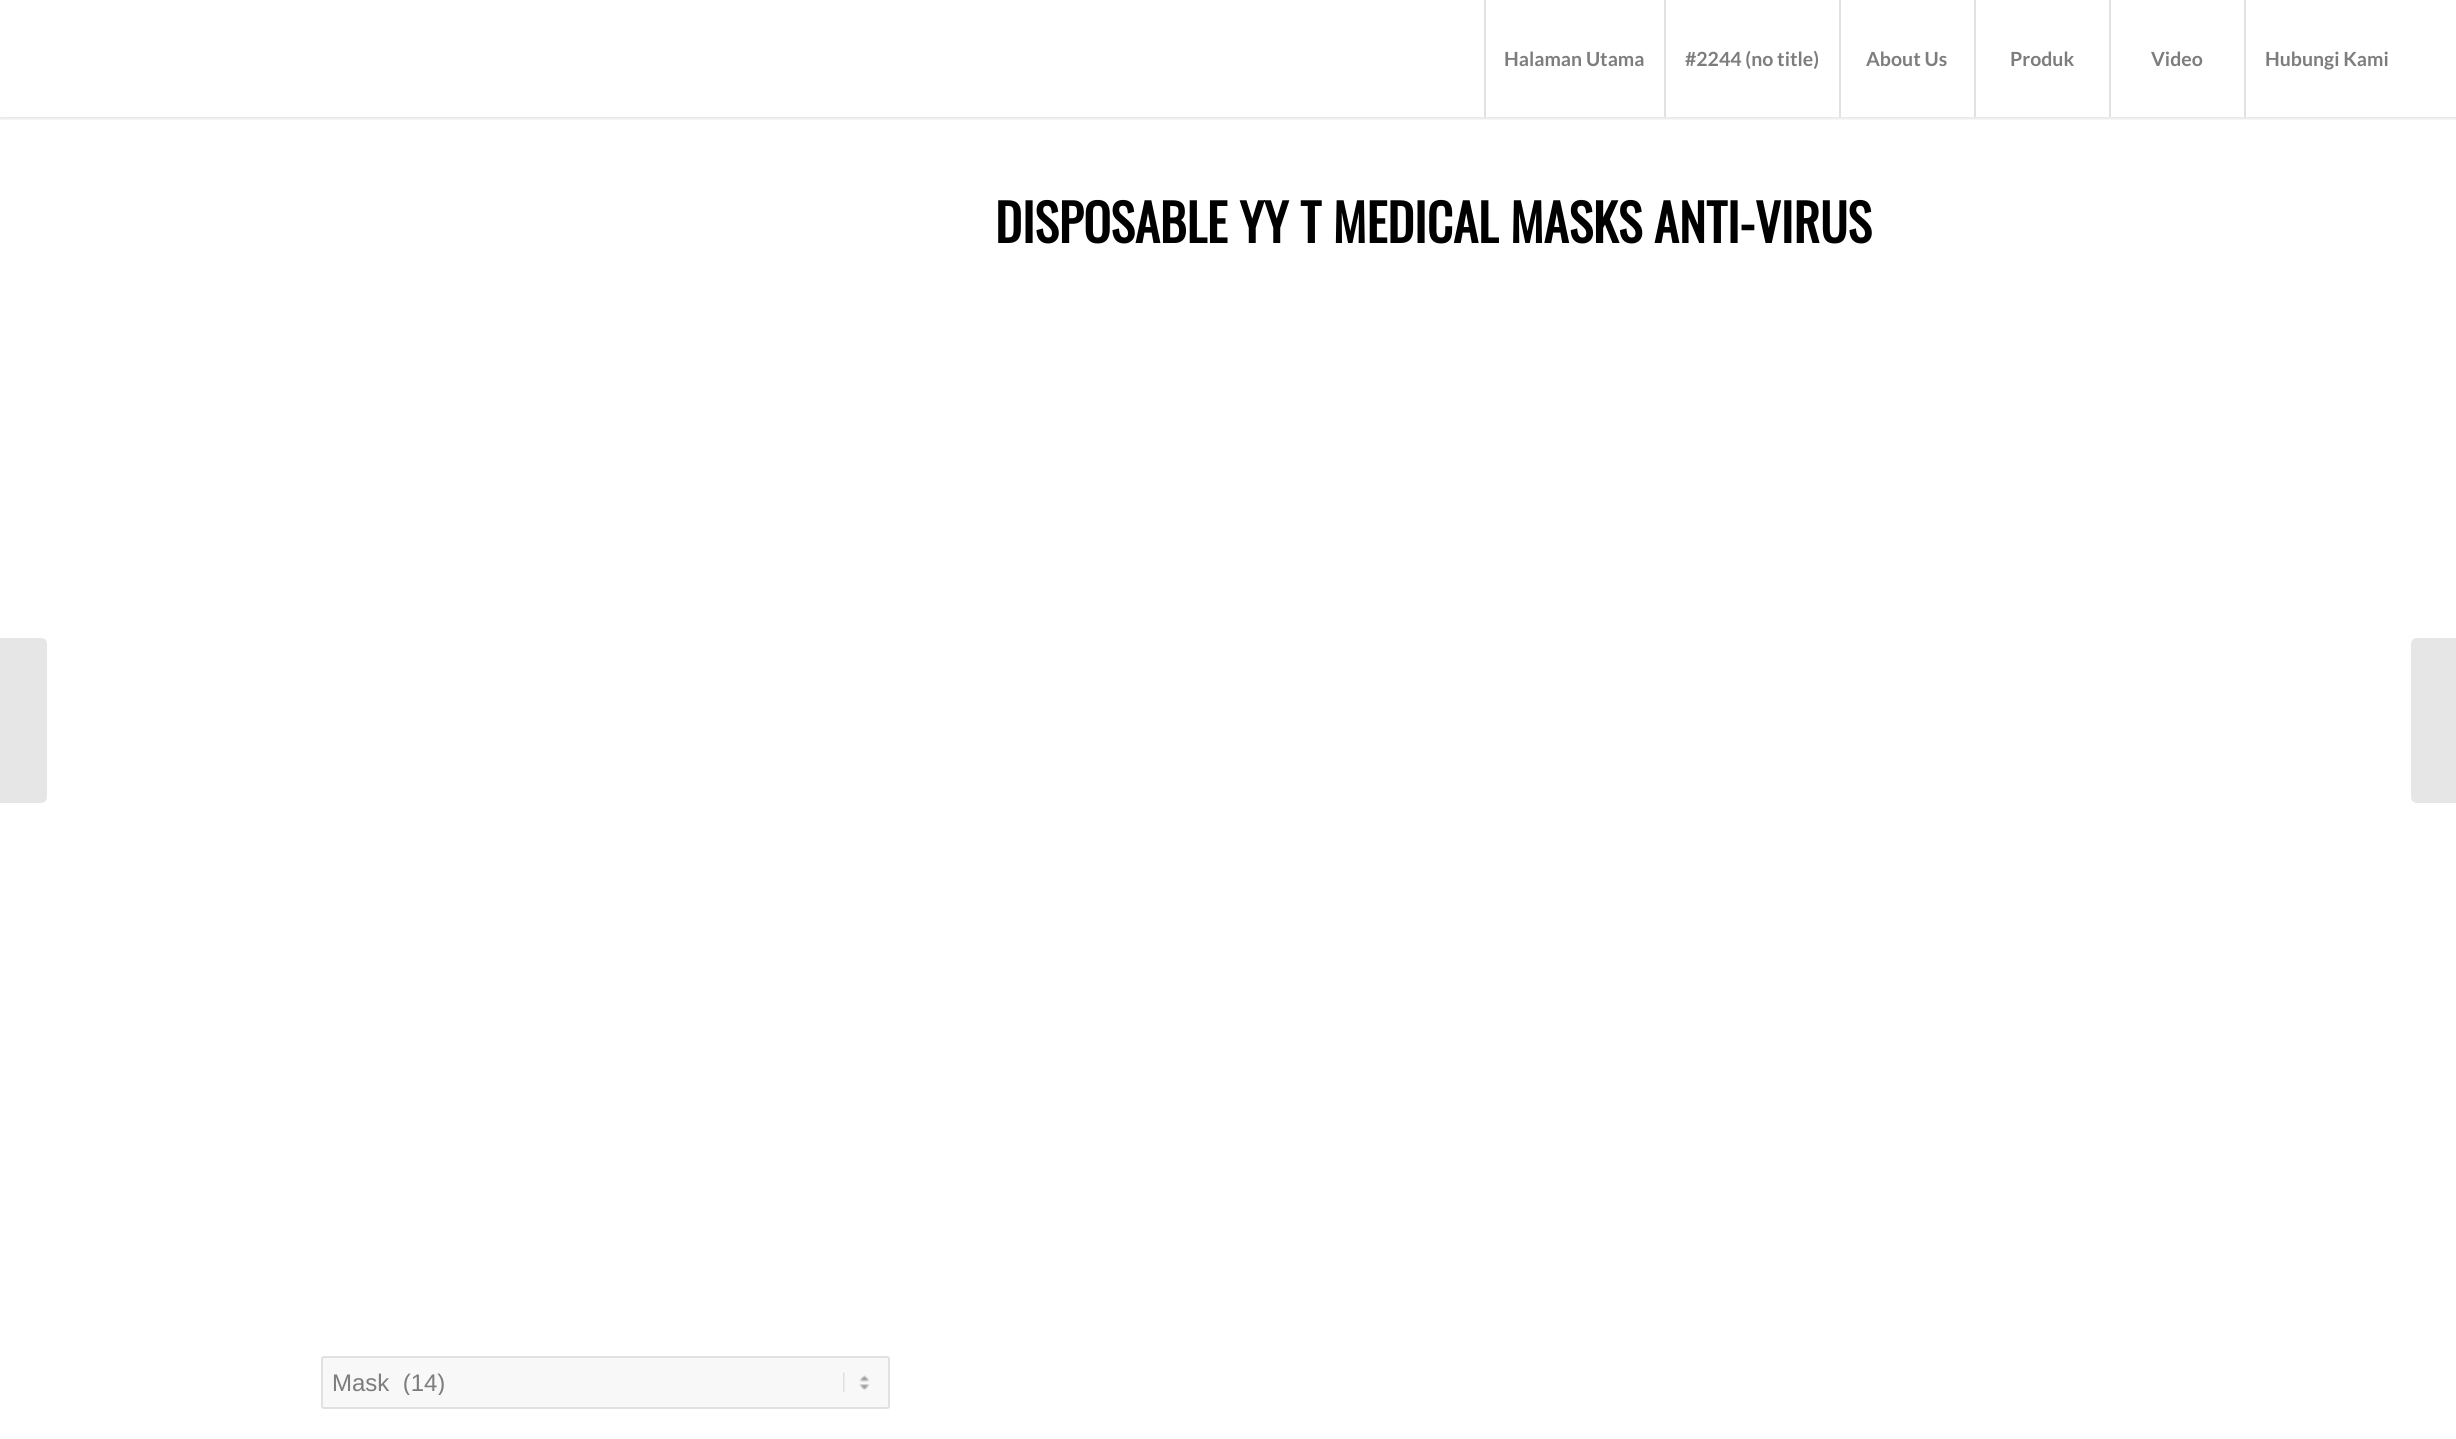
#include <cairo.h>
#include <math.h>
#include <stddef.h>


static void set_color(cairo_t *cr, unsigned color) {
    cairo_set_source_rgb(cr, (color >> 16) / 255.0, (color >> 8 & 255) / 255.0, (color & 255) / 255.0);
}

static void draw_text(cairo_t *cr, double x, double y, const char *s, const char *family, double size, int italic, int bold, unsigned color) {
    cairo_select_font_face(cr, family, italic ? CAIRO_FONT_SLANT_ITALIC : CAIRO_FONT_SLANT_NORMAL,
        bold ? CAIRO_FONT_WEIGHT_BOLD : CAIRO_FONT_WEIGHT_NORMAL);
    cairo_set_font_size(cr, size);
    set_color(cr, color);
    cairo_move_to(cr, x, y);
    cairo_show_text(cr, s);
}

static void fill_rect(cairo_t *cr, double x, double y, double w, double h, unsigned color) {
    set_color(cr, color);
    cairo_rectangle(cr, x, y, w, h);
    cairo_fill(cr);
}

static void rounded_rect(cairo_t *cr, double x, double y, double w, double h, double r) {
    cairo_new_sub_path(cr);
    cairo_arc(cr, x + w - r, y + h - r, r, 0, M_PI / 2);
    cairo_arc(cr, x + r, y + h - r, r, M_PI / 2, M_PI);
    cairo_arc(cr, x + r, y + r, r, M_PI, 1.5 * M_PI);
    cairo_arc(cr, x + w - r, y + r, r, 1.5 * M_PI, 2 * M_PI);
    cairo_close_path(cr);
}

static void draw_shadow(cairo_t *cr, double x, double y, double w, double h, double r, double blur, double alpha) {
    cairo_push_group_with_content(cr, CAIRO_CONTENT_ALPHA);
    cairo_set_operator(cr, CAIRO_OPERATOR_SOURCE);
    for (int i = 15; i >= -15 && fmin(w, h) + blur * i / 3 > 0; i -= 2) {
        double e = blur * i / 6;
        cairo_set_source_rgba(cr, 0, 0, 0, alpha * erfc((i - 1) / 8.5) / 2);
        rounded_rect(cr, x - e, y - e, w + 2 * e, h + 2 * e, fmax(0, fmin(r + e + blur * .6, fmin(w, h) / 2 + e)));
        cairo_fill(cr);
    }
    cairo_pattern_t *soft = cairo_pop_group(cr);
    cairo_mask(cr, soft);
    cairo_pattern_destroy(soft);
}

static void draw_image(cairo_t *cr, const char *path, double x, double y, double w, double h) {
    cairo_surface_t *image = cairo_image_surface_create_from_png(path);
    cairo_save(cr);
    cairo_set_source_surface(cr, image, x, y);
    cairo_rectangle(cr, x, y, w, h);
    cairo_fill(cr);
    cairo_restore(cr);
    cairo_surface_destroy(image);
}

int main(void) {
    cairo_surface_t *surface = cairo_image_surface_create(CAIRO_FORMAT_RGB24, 2456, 1439);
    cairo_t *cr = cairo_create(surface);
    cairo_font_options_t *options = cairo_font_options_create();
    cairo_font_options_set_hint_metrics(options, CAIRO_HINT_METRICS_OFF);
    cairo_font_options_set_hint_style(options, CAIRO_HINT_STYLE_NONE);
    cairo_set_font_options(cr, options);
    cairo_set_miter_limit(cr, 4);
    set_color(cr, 0xFFFFFF);
    cairo_paint(cr);
    cairo_save(cr);
    cairo_rectangle(cr, 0, 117, 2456, 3);
    cairo_clip(cr);
    set_color(cr, 0x000000);
    draw_shadow(cr, -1, -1, 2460, 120, 0, 1.5, 0.1);
    cairo_restore(cr);
    fill_rect(cr, 1484, 0, 2, 117, 0xE1E1E1);
    draw_text(cr, 1504, 66, "Halaman Utama", "Lato", 19.5, 0, 1, 0x7D7D7D);
    fill_rect(cr, 1664, 0, 2, 117, 0xE1E1E1);
    draw_text(cr, 1685, 66, "#2244 (no title)", "Lato", 19.5, 0, 1, 0x7D7D7D);
    fill_rect(cr, 1839, 0, 2, 117, 0xE1E1E1);
    draw_text(cr, 1866, 66, "About Us", "Lato", 19.5, 0, 1, 0x7D7D7D);
    fill_rect(cr, 1974, 0, 2, 117, 0xE1E1E1);
    draw_text(cr, 2010, 66, "Produk", "Lato", 19.5, 0, 1, 0x7D7D7D);
    fill_rect(cr, 2109, 0, 2, 117, 0xE1E1E1);
    draw_text(cr, 2151, 66, "Video", "Lato", 19.5, 0, 1, 0x7D7D7D);
    fill_rect(cr, 2244, 0, 2, 117, 0xE1E1E1);
    draw_text(cr, 2265, 66, "Hubungi Kami", "Lato", 19.5, 0, 1, 0x7D7D7D);
    set_color(cr, 0xE6E6E6);
    cairo_new_path(cr);
    cairo_move_to(cr, 0, 638);
    cairo_line_to(cr, 41, 638);
    cairo_curve_to(cr, 44.5, 638, 47, 640.5, 47, 644);
    cairo_line_to(cr, 47, 797);
    cairo_curve_to(cr, 47, 800.5, 44.5, 803, 41, 803);
    cairo_line_to(cr, 0, 803);
    cairo_close_path(cr);
    cairo_fill(cr);
    draw_text(cr, 995, 243, "DISPOSABLE YY T MEDICAL MASKS ANTI-VIRUS", "Oswald", 51, 0, 1, 0x000000);
    set_color(cr, 0xF8F8F8);
    rounded_rect(cr, 321, 1356, 569, 53, 3);
    cairo_fill(cr);
    draw_image(cr, "assets/img1.png", 843, 1372, 27, 20);
    rounded_rect(cr, 322, 1357, 567, 51, 2);
    set_color(cr, 0xE1E1E1);
    cairo_stroke(cr);
    cairo_save(cr);
    cairo_rectangle(cr, 332, 1370, 547, 25);
    cairo_clip(cr);
    draw_text(cr, 332, 1391, "Mask  (14)", "Liberation Sans", 24, 0, 0, 0x7D7D7D);
    cairo_restore(cr);
    set_color(cr, 0xE6E6E6);
    cairo_new_path(cr);
    cairo_move_to(cr, 2417, 638);
    cairo_line_to(cr, 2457, 638);
    cairo_line_to(cr, 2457, 803);
    cairo_line_to(cr, 2417, 803);
    cairo_curve_to(cr, 2413.5, 803, 2411, 800.5, 2411, 797);
    cairo_line_to(cr, 2411, 644);
    cairo_curve_to(cr, 2411, 640.5, 2413.5, 638, 2417, 638);
    cairo_close_path(cr);
    cairo_fill(cr);
    cairo_surface_write_to_png(surface, "output.png");
    cairo_font_options_destroy(options);
    cairo_destroy(cr);
    cairo_surface_destroy(surface);
    return 0;
}
